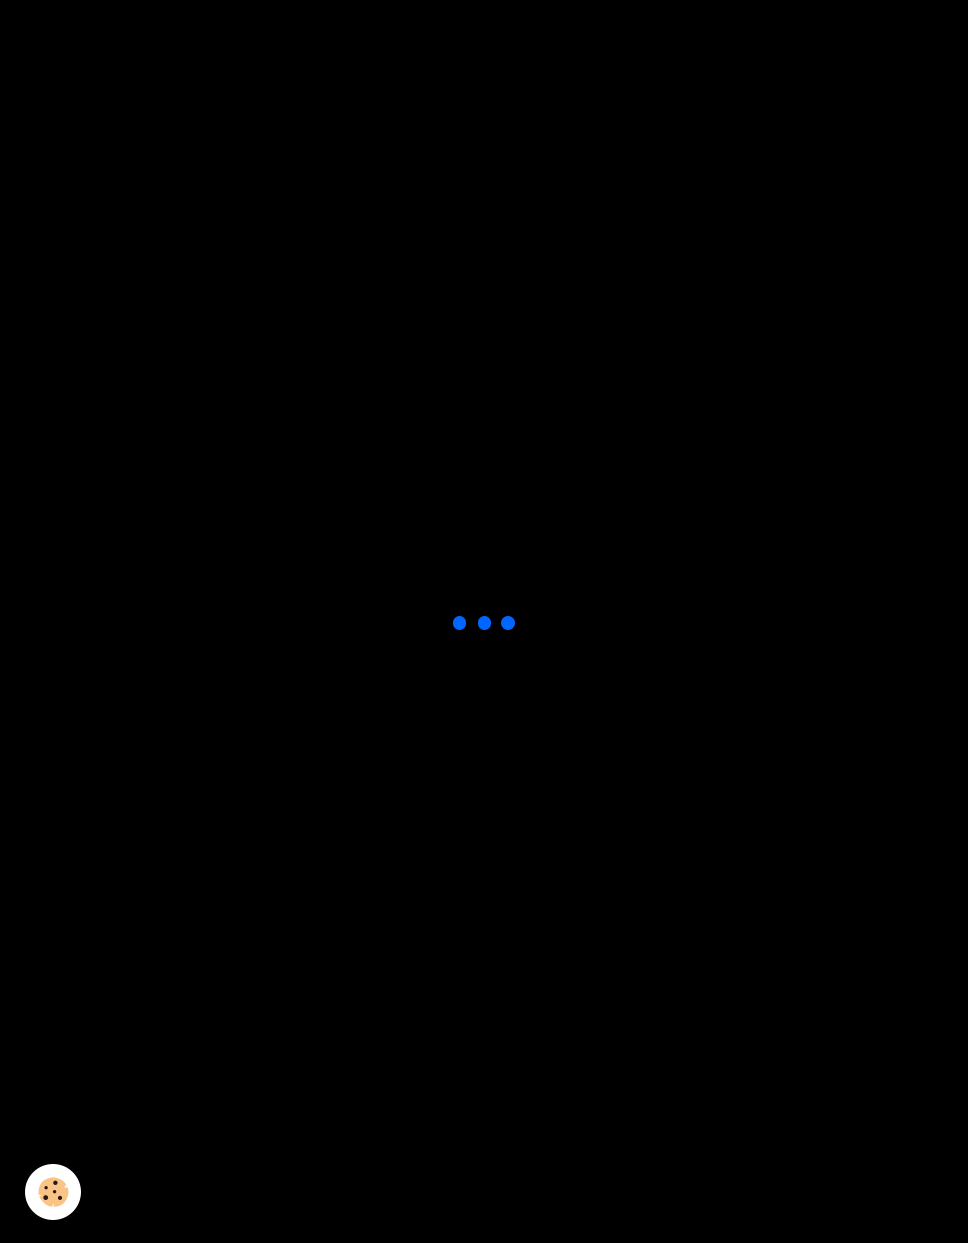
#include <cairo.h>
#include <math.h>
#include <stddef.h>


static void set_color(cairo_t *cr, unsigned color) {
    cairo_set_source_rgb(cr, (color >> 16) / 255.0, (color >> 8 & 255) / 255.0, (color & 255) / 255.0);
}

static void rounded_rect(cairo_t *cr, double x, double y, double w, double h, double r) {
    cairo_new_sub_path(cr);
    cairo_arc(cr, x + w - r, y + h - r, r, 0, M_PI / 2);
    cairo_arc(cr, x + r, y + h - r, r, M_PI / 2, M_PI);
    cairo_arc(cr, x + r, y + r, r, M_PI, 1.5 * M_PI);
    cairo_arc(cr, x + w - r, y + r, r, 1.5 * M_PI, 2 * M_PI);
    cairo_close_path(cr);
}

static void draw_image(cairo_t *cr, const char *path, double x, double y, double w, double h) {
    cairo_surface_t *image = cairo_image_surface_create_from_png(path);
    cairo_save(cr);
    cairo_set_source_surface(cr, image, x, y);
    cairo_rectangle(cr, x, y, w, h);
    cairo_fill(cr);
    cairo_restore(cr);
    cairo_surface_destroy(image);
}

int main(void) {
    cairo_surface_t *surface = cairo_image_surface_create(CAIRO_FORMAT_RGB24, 968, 1243);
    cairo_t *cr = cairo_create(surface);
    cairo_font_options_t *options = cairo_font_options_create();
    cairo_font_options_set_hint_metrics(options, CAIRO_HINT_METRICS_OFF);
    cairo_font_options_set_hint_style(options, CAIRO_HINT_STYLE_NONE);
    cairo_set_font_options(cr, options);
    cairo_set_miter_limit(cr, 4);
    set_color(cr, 0x000000);
    cairo_paint(cr);
    set_color(cr, 0x0066FF);
    rounded_rect(cr, 453, 616, 13, 14, 6.5);
    cairo_fill(cr);
    rounded_rect(cr, 478, 616, 13, 14, 6.5);
    cairo_fill(cr);
    cairo_arc(cr, 508, 623, 7, 0, 2 * M_PI);
    cairo_fill(cr);
    set_color(cr, 0xFFFFFF);
    cairo_arc(cr, 53, 1192, 28, 0, 2 * M_PI);
    cairo_fill(cr);
    draw_image(cr, "assets/img1.png", 38, 1177, 31, 30);
    cairo_surface_write_to_png(surface, "output.png");
    cairo_font_options_destroy(options);
    cairo_destroy(cr);
    cairo_surface_destroy(surface);
    return 0;
}
